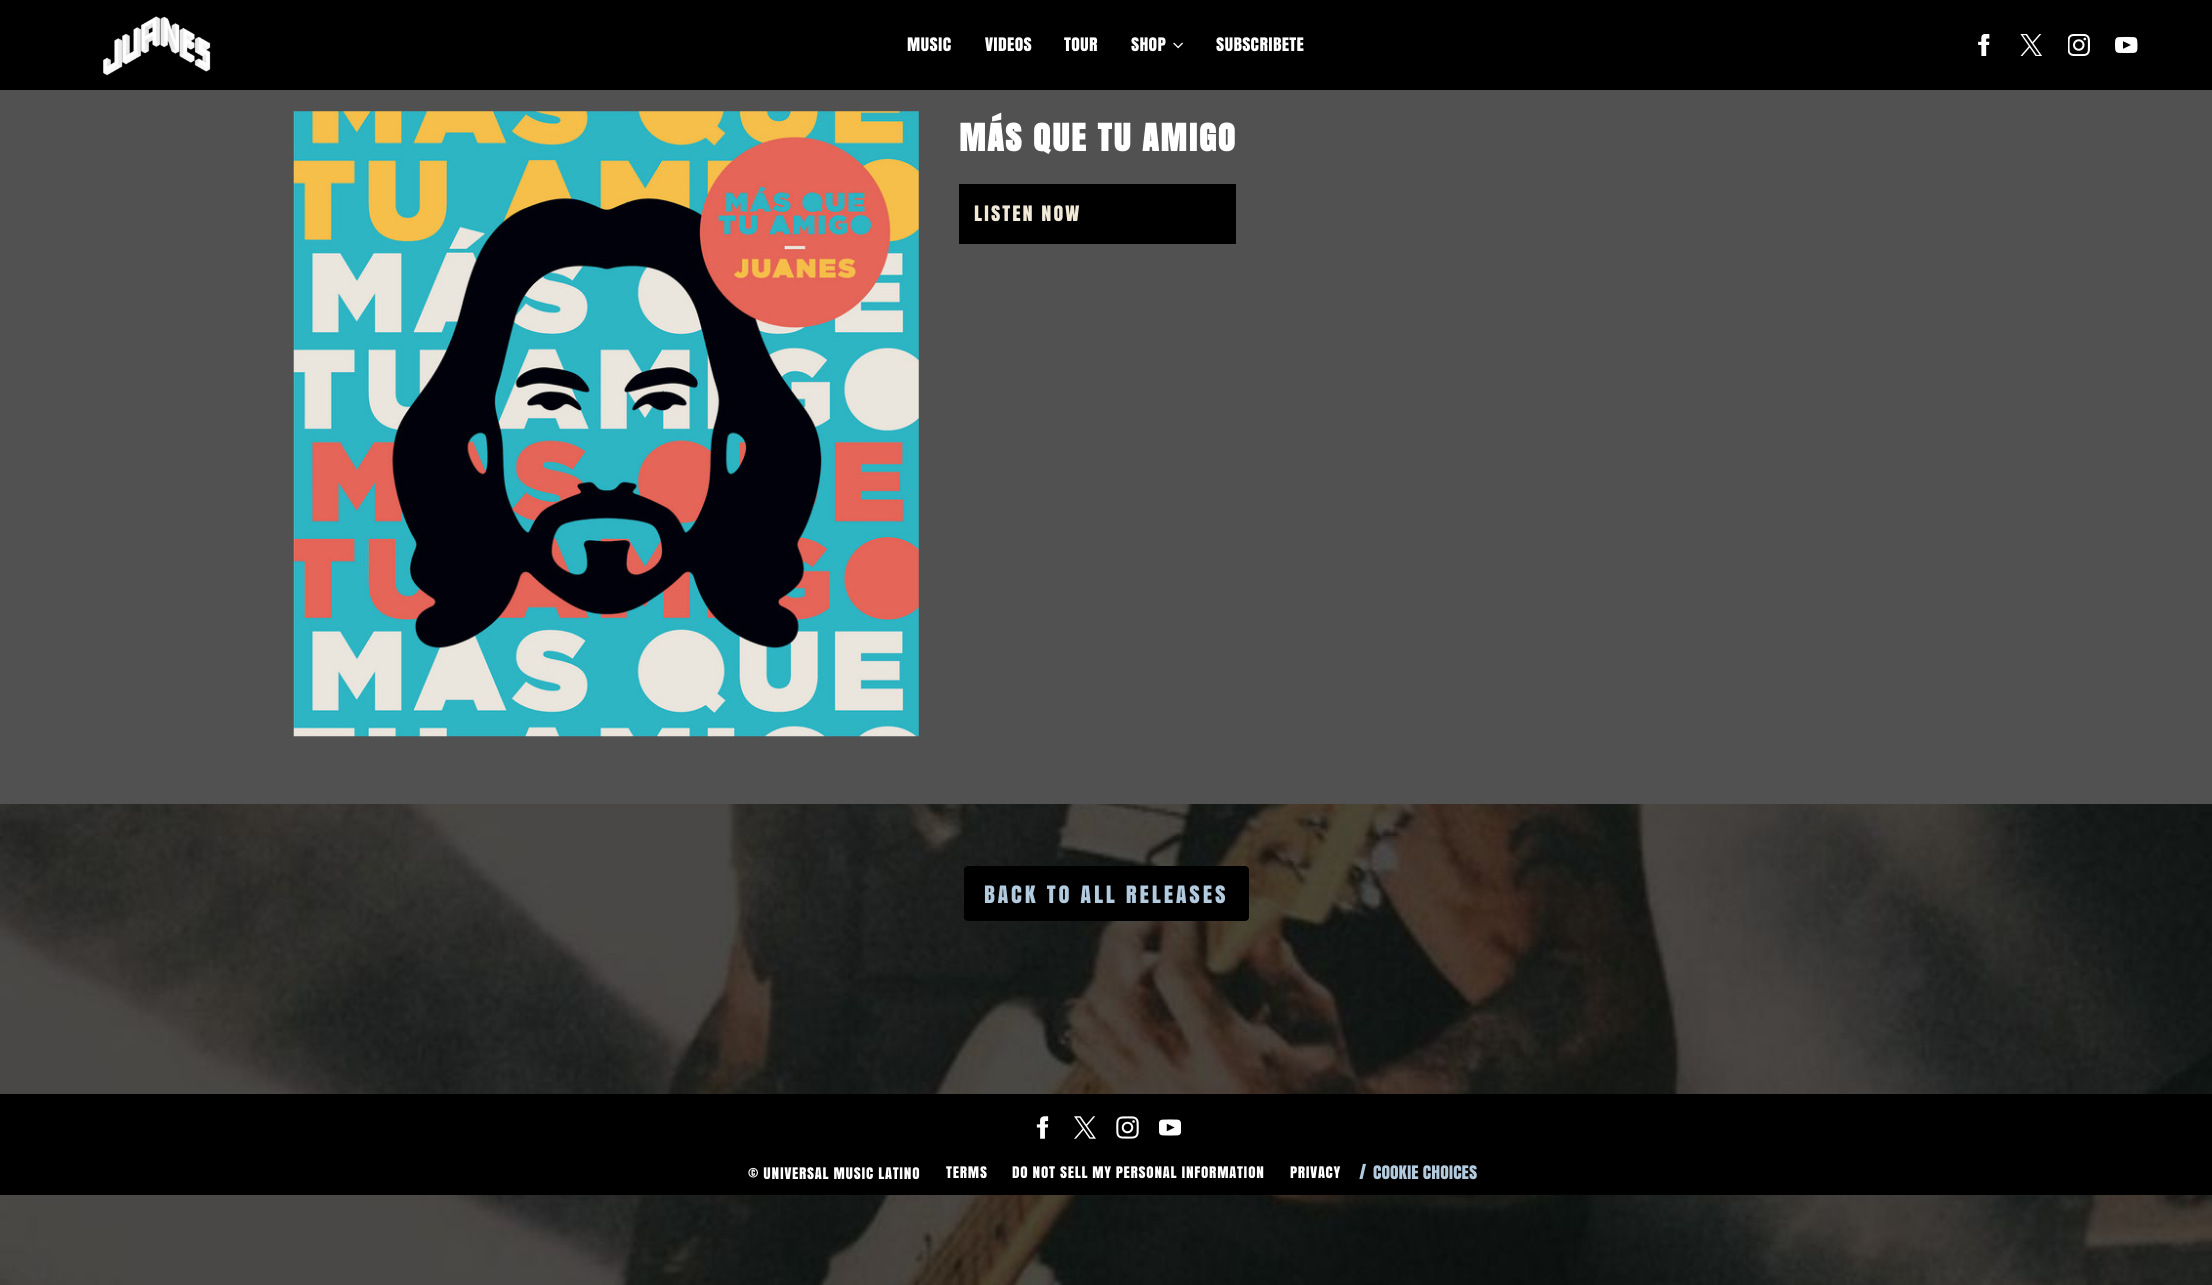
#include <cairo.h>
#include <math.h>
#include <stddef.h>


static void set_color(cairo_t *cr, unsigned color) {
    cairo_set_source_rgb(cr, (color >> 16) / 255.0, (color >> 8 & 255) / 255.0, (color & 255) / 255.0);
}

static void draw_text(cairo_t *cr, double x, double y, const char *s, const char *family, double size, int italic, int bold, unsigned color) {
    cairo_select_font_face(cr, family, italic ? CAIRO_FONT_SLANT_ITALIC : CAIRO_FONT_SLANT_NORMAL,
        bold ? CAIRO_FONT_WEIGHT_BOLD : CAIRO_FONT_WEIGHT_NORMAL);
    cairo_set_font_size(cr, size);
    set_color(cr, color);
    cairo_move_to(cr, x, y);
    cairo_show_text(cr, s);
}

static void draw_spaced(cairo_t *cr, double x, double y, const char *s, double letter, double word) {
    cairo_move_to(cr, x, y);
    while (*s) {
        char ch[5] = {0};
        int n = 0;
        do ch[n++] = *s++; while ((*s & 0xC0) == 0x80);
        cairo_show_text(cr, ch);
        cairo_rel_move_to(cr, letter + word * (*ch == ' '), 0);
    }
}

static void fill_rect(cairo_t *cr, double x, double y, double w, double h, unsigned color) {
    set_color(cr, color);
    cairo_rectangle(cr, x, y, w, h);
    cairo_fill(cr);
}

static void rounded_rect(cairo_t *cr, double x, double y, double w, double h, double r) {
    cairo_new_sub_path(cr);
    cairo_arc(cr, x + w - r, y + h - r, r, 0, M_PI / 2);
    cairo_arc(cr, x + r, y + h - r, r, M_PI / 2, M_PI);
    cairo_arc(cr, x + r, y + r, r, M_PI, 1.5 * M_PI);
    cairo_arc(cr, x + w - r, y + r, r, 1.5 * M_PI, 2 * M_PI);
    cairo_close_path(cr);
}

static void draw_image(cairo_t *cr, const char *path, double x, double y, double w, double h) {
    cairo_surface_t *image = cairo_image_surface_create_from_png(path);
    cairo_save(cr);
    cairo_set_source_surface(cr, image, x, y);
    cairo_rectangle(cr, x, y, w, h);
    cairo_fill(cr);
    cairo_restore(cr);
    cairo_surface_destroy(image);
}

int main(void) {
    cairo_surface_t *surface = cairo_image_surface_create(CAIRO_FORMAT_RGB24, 2212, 1285);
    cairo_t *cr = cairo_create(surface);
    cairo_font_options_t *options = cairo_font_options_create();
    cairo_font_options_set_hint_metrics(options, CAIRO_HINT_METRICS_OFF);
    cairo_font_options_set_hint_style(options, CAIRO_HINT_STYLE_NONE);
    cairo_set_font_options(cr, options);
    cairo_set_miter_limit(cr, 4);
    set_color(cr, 0xFFFFFF);
    cairo_paint(cr);
    fill_rect(cr, 0, 0, 2212, 90, 0x000000);
    draw_image(cr, "assets/img1.png", 103, 16, 108, 60);
    cairo_select_font_face(cr, "Anton", CAIRO_FONT_SLANT_NORMAL, CAIRO_FONT_WEIGHT_NORMAL);
    cairo_set_font_size(cr, 17.5);
    set_color(cr, 0xFFFFFF);
    draw_spaced(cr, 907, 51, "MUSIC", 0.3, 0);
    draw_spaced(cr, 985, 51, "VIDEOS", 0.3, 0);
    draw_spaced(cr, 1064, 51, "TOUR", 0.3, 0);
    draw_spaced(cr, 1131, 51, "SHOP", 0.3, 0);
    draw_image(cr, "assets/img2.png", 1173, 42, 10, 7);
    draw_spaced(cr, 1216, 51, "SUBSCRIBETE", 0.3, 0);
    draw_image(cr, "assets/img3.png", 1978, 34, 12, 22);
    draw_image(cr, "assets/img4.png", 2020, 34, 22, 22);
    draw_image(cr, "assets/img5.png", 2068, 34, 22, 22);
    draw_image(cr, "assets/img6.png", 2115, 36, 23, 18);
    fill_rect(cr, 0, 90, 2212, 714, 0x515151);
    draw_image(cr, "assets/img7.png", 293, 111, 626, 626);
    cairo_select_font_face(cr, "Anton", CAIRO_FONT_SLANT_NORMAL, CAIRO_FONT_WEIGHT_BOLD);
    cairo_set_font_size(cr, 35);
    set_color(cr, 0xFFFFFF);
    draw_spaced(cr, 959, 151, "MÁS QUE TU AMIGO", 1.75, 0);
    fill_rect(cr, 959, 184, 277, 60, 0x000000);
    cairo_select_font_face(cr, "Anton", CAIRO_FONT_SLANT_NORMAL, CAIRO_FONT_WEIGHT_NORMAL);
    cairo_set_font_size(cr, 20);
    set_color(cr, 0xF2EAD8);
    draw_spaced(cr, 974, 221, "LISTEN NOW", 2, 0);
    draw_image(cr, "assets/img8.png", 0, 804, 2212, 481);
    set_color(cr, 0x000000);
    rounded_rect(cr, 964, 866, 285, 55, 4);
    cairo_fill(cr);
    cairo_set_font_size(cr, 22.5);
    set_color(cr, 0xB3CBDE);
    draw_spaced(cr, 984, 903, "BACK TO ALL RELEASES", 2.9, 0);
    fill_rect(cr, 0, 1094, 2212, 101, 0x000000);
    draw_image(cr, "assets/img9.png", 1036, 1116, 13, 23);
    draw_image(cr, "assets/img10.png", 1074, 1116, 22, 23);
    draw_image(cr, "assets/img11.png", 1116, 1116, 23, 23);
    draw_image(cr, "assets/img12.png", 1159, 1119, 22, 17);
    cairo_set_font_size(cr, 15);
    set_color(cr, 0xFFFFFF);
    draw_spaced(cr, 748, 1179, "© UNIVERSAL MUSIC LATINO", 0.75, 0);
    draw_spaced(cr, 946, 1178, "TERMS", 0.75, 0);
    draw_spaced(cr, 1012, 1178, "DO NOT SELL MY PERSONAL INFORMATION", 0.75, 0);
    draw_spaced(cr, 1290, 1178, "PRIVACY", 0.75, 0);
    draw_text(cr, 1359, 1179, "/", "Anton", 17.5, 0, 0, 0xB3CBDE);
    draw_text(cr, 1373, 1179, "COOKIE CHOICES", "Anton", 17.5, 0, 0, 0xB3CBDE);
    cairo_surface_write_to_png(surface, "output.png");
    cairo_font_options_destroy(options);
    cairo_destroy(cr);
    cairo_surface_destroy(surface);
    return 0;
}
